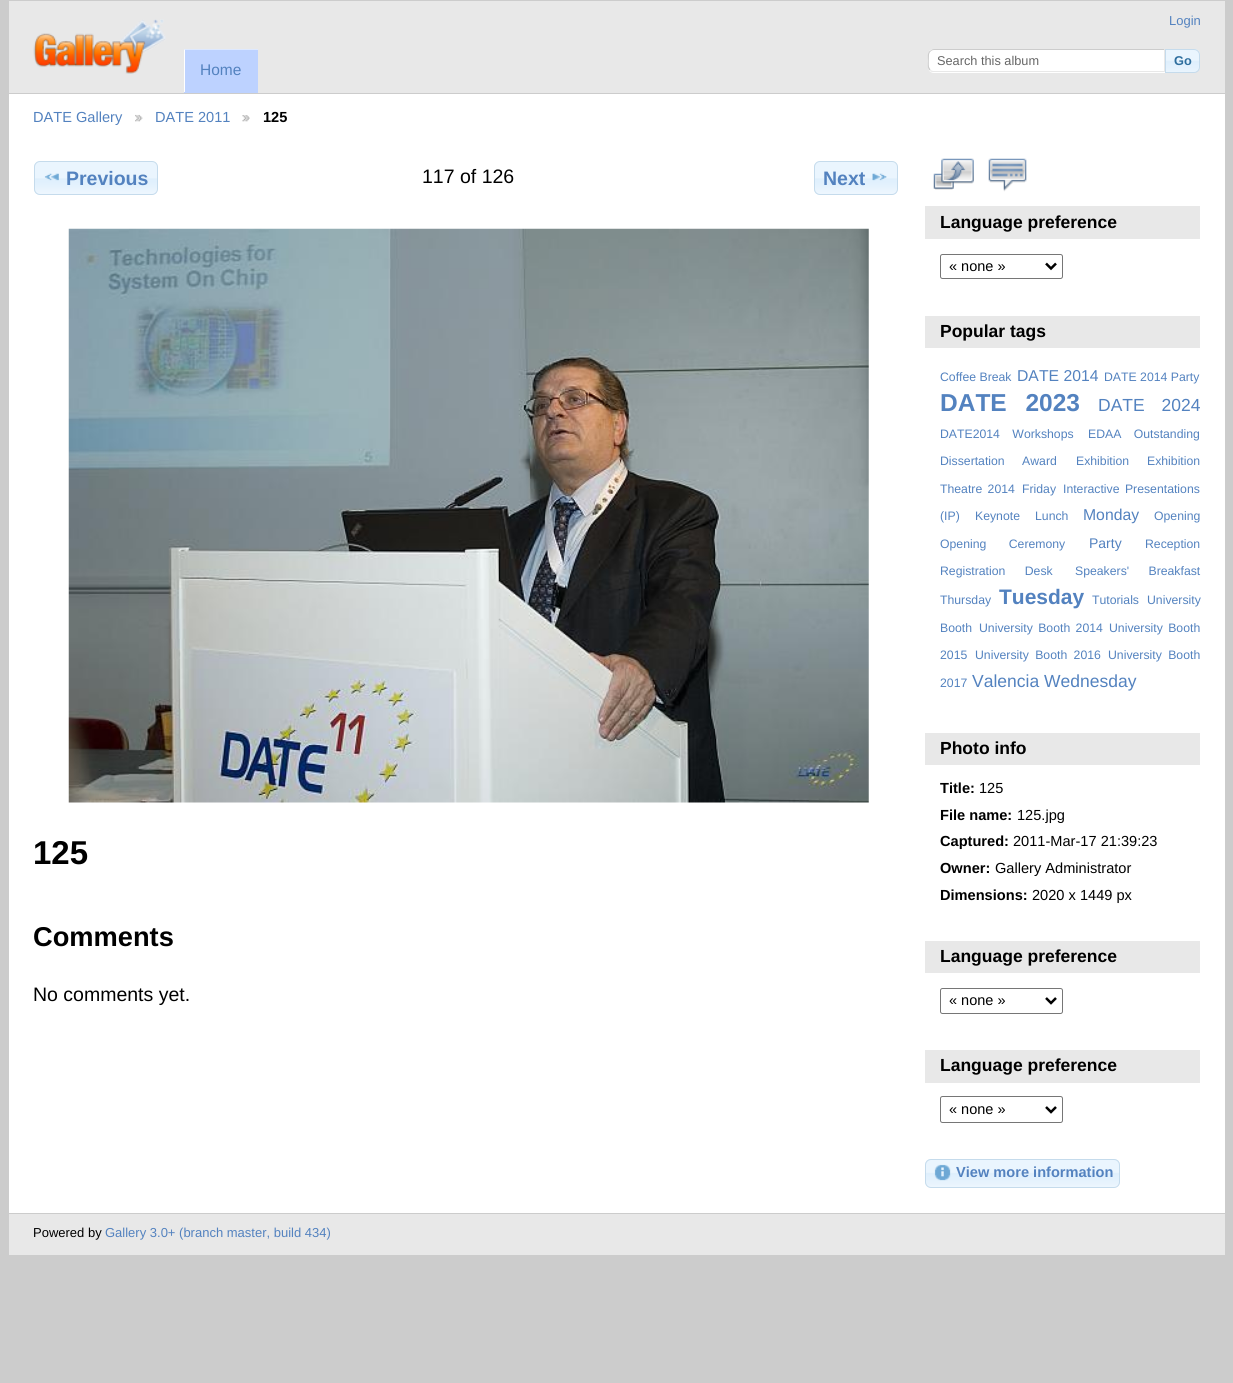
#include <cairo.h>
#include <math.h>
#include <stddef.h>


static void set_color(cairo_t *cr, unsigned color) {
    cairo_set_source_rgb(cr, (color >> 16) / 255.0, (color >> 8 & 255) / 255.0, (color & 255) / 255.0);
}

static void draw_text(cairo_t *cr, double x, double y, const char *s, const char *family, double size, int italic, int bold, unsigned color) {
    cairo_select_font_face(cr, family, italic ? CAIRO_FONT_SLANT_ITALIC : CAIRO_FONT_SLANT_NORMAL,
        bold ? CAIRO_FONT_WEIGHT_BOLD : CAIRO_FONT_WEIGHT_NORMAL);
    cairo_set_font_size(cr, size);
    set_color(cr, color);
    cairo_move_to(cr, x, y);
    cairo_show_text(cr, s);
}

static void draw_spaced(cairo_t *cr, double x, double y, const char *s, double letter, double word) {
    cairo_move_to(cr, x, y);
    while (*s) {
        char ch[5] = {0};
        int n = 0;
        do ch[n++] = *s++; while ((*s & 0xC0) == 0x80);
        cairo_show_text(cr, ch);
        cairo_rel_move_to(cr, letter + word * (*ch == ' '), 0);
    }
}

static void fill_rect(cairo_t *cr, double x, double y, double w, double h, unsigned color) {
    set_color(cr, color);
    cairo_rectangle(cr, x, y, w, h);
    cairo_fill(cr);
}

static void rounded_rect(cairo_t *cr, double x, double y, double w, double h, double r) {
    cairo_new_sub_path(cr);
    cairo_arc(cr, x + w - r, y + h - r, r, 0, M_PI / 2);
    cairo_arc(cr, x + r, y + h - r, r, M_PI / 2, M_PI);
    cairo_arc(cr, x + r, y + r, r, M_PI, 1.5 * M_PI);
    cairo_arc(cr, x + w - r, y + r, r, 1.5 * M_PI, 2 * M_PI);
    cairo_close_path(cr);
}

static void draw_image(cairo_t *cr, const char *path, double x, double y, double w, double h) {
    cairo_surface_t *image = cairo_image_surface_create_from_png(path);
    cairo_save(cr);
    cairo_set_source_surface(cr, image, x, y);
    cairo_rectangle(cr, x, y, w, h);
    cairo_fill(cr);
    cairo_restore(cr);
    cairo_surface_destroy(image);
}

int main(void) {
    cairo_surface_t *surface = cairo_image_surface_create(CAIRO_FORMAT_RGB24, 1233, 1383);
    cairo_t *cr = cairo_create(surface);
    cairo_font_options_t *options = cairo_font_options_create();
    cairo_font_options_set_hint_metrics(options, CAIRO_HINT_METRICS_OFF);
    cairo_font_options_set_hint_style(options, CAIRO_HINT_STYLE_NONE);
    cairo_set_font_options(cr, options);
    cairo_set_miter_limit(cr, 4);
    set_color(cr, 0xCCCCCC);
    cairo_paint(cr);
    fill_rect(cr, 9, 94, 1216, 1119, 0xFFFFFF);
    fill_rect(cr, 9, 1, 1216, 92, 0xE8E8E8);
    draw_image(cr, "assets/img1.png", 33, 19, 133, 55);
    draw_text(cr, 1169, 25, "Login", "Liberation Sans", 13, 0, 0, 0x5382BF);
    set_color(cr, 0xFFFFFF);
    cairo_new_path(cr);
    cairo_move_to(cr, 934, 49);
    cairo_line_to(cr, 1165, 49);
    cairo_line_to(cr, 1165, 73);
    cairo_line_to(cr, 934, 73);
    cairo_curve_to(cr, 930.5, 73, 928, 70.5, 928, 67);
    cairo_line_to(cr, 928, 55);
    cairo_curve_to(cr, 928, 51.5, 930.5, 49, 934, 49);
    cairo_close_path(cr);
    cairo_fill(cr);
    set_color(cr, 0xCCCCCC);
    cairo_new_path(cr);
    cairo_move_to(cr, 934, 49);
    cairo_curve_to(cr, 932, 49, 931, 50, 930, 51);
    cairo_line_to(cr, 930, 52);
    cairo_curve_to(cr, 931, 51, 932, 50, 934, 50);
    cairo_line_to(cr, 1164, 50);
    cairo_line_to(cr, 1165, 49);
    cairo_close_path(cr);
    cairo_fill(cr);
    set_color(cr, 0xE8E8E8);
    cairo_new_path(cr);
    cairo_move_to(cr, 1165, 72);
    cairo_line_to(cr, 1165, 49);
    cairo_line_to(cr, 1164, 50);
    cairo_line_to(cr, 1164, 71);
    cairo_line_to(cr, 1163.5, 71);
    cairo_line_to(cr, 1164.5, 72);
    cairo_close_path(cr);
    cairo_fill(cr);
    cairo_new_path(cr);
    cairo_move_to(cr, 1164, 72);
    cairo_line_to(cr, 934, 72);
    cairo_curve_to(cr, 932, 72, 930, 72, 930, 70);
    cairo_line_to(cr, 933, 71);
    cairo_line_to(cr, 1164, 71);
    cairo_close_path(cr);
    cairo_fill(cr);
    set_color(cr, 0xCCCCCC);
    cairo_new_path(cr);
    cairo_move_to(cr, 929.5, 51);
    cairo_curve_to(cr, 927, 53.5, 928, 57.5, 928, 60.5);
    cairo_curve_to(cr, 928, 63.5, 927, 68, 929.5, 70.5);
    cairo_line_to(cr, 930.5, 69.5);
    cairo_line_to(cr, 929, 67);
    cairo_curve_to(cr, 928.5, 65, 929, 57.5, 929, 55);
    cairo_curve_to(cr, 929, 54, 929.5, 52.5, 930.5, 51.5);
    cairo_close_path(cr);
    cairo_fill(cr);
    draw_text(cr, 937, 65, "Search this album", "Liberation Sans", 12.75, 0, 0, 0x666666);
    draw_image(cr, "assets/img2.png", 1166, 49, 34, 23);
    cairo_new_path(cr);
    cairo_move_to(cr, 1165.5, 49.5);
    cairo_line_to(cr, 1194, 49.5);
    cairo_curve_to(cr, 1197, 49.5, 1199.5, 52, 1199.5, 55);
    cairo_line_to(cr, 1199.5, 67);
    cairo_curve_to(cr, 1199.5, 70, 1197, 72.5, 1194, 72.5);
    cairo_line_to(cr, 1165.5, 72.5);
    cairo_close_path(cr);
    set_color(cr, 0xC5DBEC);
    cairo_set_line_width(cr, 1);
    cairo_stroke(cr);
    draw_text(cr, 1174, 65, "Go", "Liberation Sans", 12.75, 0, 1, 0x2E6E9E);
    fill_rect(cr, 184, 49, 74, 44, 0xBDD2FF);
    set_color(cr, 0xDEE9FF);
    cairo_new_path(cr);
    cairo_move_to(cr, 184, 49);
    cairo_line_to(cr, 258, 49);
    cairo_line_to(cr, 258, 50);
    cairo_line_to(cr, 185, 50);
    cairo_close_path(cr);
    cairo_fill(cr);
    set_color(cr, 0xFFFFFF);
    cairo_new_path(cr);
    cairo_move_to(cr, 184, 92);
    cairo_line_to(cr, 184, 49);
    cairo_line_to(cr, 185, 50);
    cairo_line_to(cr, 185, 92);
    cairo_close_path(cr);
    cairo_fill(cr);
    draw_text(cr, 200, 75, "Home", "Liberation Sans", 15.5, 0, 0, 0x5382BF);
    draw_text(cr, 33, 122, "DATE Gallery", "Liberation Sans", 14.6, 0, 0, 0x5382BF);
    draw_image(cr, "assets/img3.png", 135, 114, 8, 8);
    draw_text(cr, 155, 122, "DATE 2011", "Liberation Sans", 14.6, 0, 0, 0x5382BF);
    draw_image(cr, "assets/img4.png", 242, 115, 8, 7);
    draw_text(cr, 263, 122, "125", "Liberation Sans", 14.6, 0, 1, 0x000000);
    draw_image(cr, "assets/img5.png", 34, 161, 123, 34);
    rounded_rect(cr, 34.5, 161.5, 123, 33, 5.5);
    set_color(cr, 0xC5DBEC);
    cairo_stroke(cr);
    draw_image(cr, "assets/img6.png", 44, 173, 15, 8);
    draw_text(cr, 66, 185, "Previous", "Liberation Sans", 19.5, 0, 1, 0x5382BF);
    draw_text(cr, 422, 183, "117 of 126", "Liberation Sans", 19.5, 0, 0, 0x000000);
    draw_image(cr, "assets/img7.png", 814, 161, 83, 34);
    rounded_rect(cr, 814.5, 161.5, 83, 33, 5.5);
    set_color(cr, 0xC5DBEC);
    cairo_stroke(cr);
    draw_text(cr, 823, 185, "Next", "Liberation Sans", 19.5, 0, 1, 0x5382BF);
    draw_image(cr, "assets/img8.png", 872, 173, 15, 8);
    draw_image(cr, "assets/img9.png", 68, 228, 801, 575);
    draw_text(cr, 33, 864, "125", "Liberation Sans", 33, 0, 1, 0x000000);
    draw_text(cr, 33, 946, "Comments", "Liberation Sans", 27.25, 0, 1, 0x000000);
    draw_text(cr, 33, 1001, "No comments yet.", "Liberation Sans", 19.5, 0, 0, 0x000000);
    draw_image(cr, "assets/img10.png", 933, 158, 41, 32);
    draw_image(cr, "assets/img11.png", 988, 158, 39, 34);
    fill_rect(cr, 925, 206, 275, 33, 0xE8E8E8);
    draw_text(cr, 940, 228, "Language preference", "Liberation Sans", 17.5, 0, 1, 0x000000);
    rounded_rect(cr, 940.5, 254.5, 122, 24, 2);
    set_color(cr, 0x767676);
    cairo_stroke(cr);
    cairo_new_path(cr);
    cairo_move_to(cr, 1046, 263.5);
    cairo_line_to(cr, 1051, 268.5);
    cairo_line_to(cr, 1056, 263.5);
    set_color(cr, 0x000000);
    cairo_set_line_width(cr, 2.5);
    cairo_stroke(cr);
    draw_text(cr, 949, 271, "« none »", "Liberation Sans", 14.5, 0, 0, 0x000000);
    fill_rect(cr, 925, 316, 275, 32, 0xE8E8E8);
    draw_text(cr, 940, 337, "Popular tags", "Liberation Sans", 17.5, 0, 1, 0x000000);
    draw_text(cr, 940, 381, "Coffee Break", "Liberation Sans", 12.25, 0, 0, 0x5382BF);
    draw_text(cr, 1017, 381, "DATE 2014", "Liberation Sans", 15.75, 0, 0, 0x5382BF);
    draw_text(cr, 1104, 381, "DATE 2014 Party", "Liberation Sans", 12.25, 0, 0, 0x5382BF);
    cairo_select_font_face(cr, "Liberation Sans", CAIRO_FONT_SLANT_NORMAL, CAIRO_FONT_WEIGHT_BOLD);
    cairo_set_font_size(cr, 24.5);
    draw_spaced(cr, 940, 411, "DATE 2023", 0, 12);
    cairo_select_font_face(cr, "Liberation Sans", CAIRO_FONT_SLANT_NORMAL, CAIRO_FONT_WEIGHT_NORMAL);
    cairo_set_font_size(cr, 17.5);
    draw_spaced(cr, 1098, 411, "DATE 2024", 0, 12);
    cairo_set_font_size(cr, 12.25);
    draw_spaced(cr, 940, 438, "DATE2014 Workshops", 0, 9);
    draw_spaced(cr, 1088, 438, "EDAA Outstanding", 0, 9);
    draw_spaced(cr, 940, 465, "Dissertation Award", 0, 14);
    draw_text(cr, 1076, 465, "Exhibition", "Liberation Sans", 12.25, 0, 0, 0x5382BF);
    draw_text(cr, 1147, 465, "Exhibition", "Liberation Sans", 12.25, 0, 0, 0x5382BF);
    draw_spaced(cr, 940, 493, "Theatre 2014", 0, 2);
    draw_text(cr, 1022, 493, "Friday", "Liberation Sans", 12.25, 0, 0, 0x5382BF);
    draw_spaced(cr, 1063, 493, "Interactive Presentations", 0, 2);
    draw_text(cr, 940, 520, "(IP)", "Liberation Sans", 12.25, 0, 0, 0x5382BF);
    draw_text(cr, 975, 520, "Keynote", "Liberation Sans", 12.25, 0, 0, 0x5382BF);
    draw_text(cr, 1035, 520, "Lunch", "Liberation Sans", 12.25, 0, 0, 0x5382BF);
    draw_text(cr, 1083, 520, "Monday", "Liberation Sans", 15.75, 0, 0, 0x5382BF);
    draw_text(cr, 1154, 520, "Opening", "Liberation Sans", 12.25, 0, 0, 0x5382BF);
    draw_spaced(cr, 940, 548, "Opening Ceremony", 0, 19);
    draw_text(cr, 1089, 548, "Party", "Liberation Sans", 14, 0, 0, 0x5382BF);
    draw_text(cr, 1145, 548, "Reception", "Liberation Sans", 12.25, 0, 0, 0x5382BF);
    draw_spaced(cr, 940, 575, "Registration Desk", 0, 16);
    draw_spaced(cr, 1075, 575, "Speakers' Breakfast", 0, 16);
    draw_text(cr, 940, 604, "Thursday", "Liberation Sans", 12.25, 0, 0, 0x5382BF);
    draw_text(cr, 999, 604, "Tuesday", "Liberation Sans", 21, 0, 1, 0x5382BF);
    draw_text(cr, 1092, 604, "Tutorials", "Liberation Sans", 12.25, 0, 0, 0x5382BF);
    draw_text(cr, 1147, 604, "University", "Liberation Sans", 12.25, 0, 0, 0x5382BF);
    draw_text(cr, 940, 632, "Booth", "Liberation Sans", 12.25, 0, 0, 0x5382BF);
    draw_spaced(cr, 979, 632, "University Booth 2014", 0, 2);
    draw_spaced(cr, 1109, 632, "University Booth", 0, 2);
    draw_text(cr, 940, 659, "2015", "Liberation Sans", 12.25, 0, 0, 0x5382BF);
    draw_spaced(cr, 975, 659, "University Booth 2016", 0, 3);
    draw_spaced(cr, 1108, 659, "University Booth", 0, 3);
    draw_text(cr, 940, 687, "2017", "Liberation Sans", 12.25, 0, 0, 0x5382BF);
    draw_text(cr, 972, 687, "Valencia Wednesday", "Liberation Sans", 17.5, 0, 0, 0x5382BF);
    fill_rect(cr, 925, 733, 275, 32, 0xE8E8E8);
    draw_text(cr, 940, 754, "Photo info", "Liberation Sans", 17.5, 0, 1, 0x000000);
    draw_text(cr, 940, 793, "Title:", "Liberation Sans", 14.6, 0, 1, 0x000000);
    draw_text(cr, 979, 793, "125", "Liberation Sans", 14.6, 0, 0, 0x000000);
    draw_text(cr, 940, 820, "File name:", "Liberation Sans", 14.6, 0, 1, 0x000000);
    draw_text(cr, 1017, 820, "125.jpg", "Liberation Sans", 14.6, 0, 0, 0x000000);
    draw_text(cr, 940, 846, "Captured:", "Liberation Sans", 14.6, 0, 1, 0x000000);
    draw_text(cr, 1013, 846, "2011-Mar-17 21:39:23", "Liberation Sans", 14.6, 0, 0, 0x000000);
    draw_text(cr, 940, 873, "Owner:", "Liberation Sans", 14.6, 0, 1, 0x000000);
    draw_text(cr, 995, 873, "Gallery Administrator", "Liberation Sans", 14.6, 0, 0, 0x000000);
    draw_text(cr, 940, 900, "Dimensions:", "Liberation Sans", 14.6, 0, 1, 0x000000);
    draw_text(cr, 1032, 900, "2020 x 1449 px", "Liberation Sans", 14.6, 0, 0, 0x000000);
    fill_rect(cr, 925, 941, 275, 32, 0xE8E8E8);
    draw_text(cr, 940, 962, "Language preference", "Liberation Sans", 17.5, 0, 1, 0x000000);
    rounded_rect(cr, 940.5, 988.5, 122, 25, 2);
    set_color(cr, 0x767676);
    cairo_set_line_width(cr, 1);
    cairo_stroke(cr);
    cairo_new_path(cr);
    cairo_move_to(cr, 1046, 998);
    cairo_line_to(cr, 1051, 1003);
    cairo_line_to(cr, 1056, 998);
    set_color(cr, 0x000000);
    cairo_set_line_width(cr, 2.5);
    cairo_stroke(cr);
    draw_text(cr, 949, 1005, "« none »", "Liberation Sans", 14.5, 0, 0, 0x000000);
    fill_rect(cr, 925, 1050, 275, 33, 0xE8E8E8);
    draw_text(cr, 940, 1071, "Language preference", "Liberation Sans", 17.5, 0, 1, 0x000000);
    rounded_rect(cr, 940.5, 1096.5, 122, 26, 2);
    set_color(cr, 0x767676);
    cairo_set_line_width(cr, 1);
    cairo_stroke(cr);
    cairo_new_path(cr);
    cairo_move_to(cr, 1046, 1107);
    cairo_line_to(cr, 1051, 1112);
    cairo_line_to(cr, 1056, 1107);
    set_color(cr, 0x000000);
    cairo_set_line_width(cr, 2.5);
    cairo_stroke(cr);
    draw_text(cr, 949, 1114, "« none »", "Liberation Sans", 14.5, 0, 0, 0x000000);
    draw_image(cr, "assets/img12.png", 925, 1159, 195, 29);
    rounded_rect(cr, 925.5, 1159.5, 194, 28, 5.5);
    set_color(cr, 0xC5DBEC);
    cairo_set_line_width(cr, 1);
    cairo_stroke(cr);
    draw_image(cr, "assets/img13.png", 934, 1164, 17, 17);
    draw_text(cr, 956, 1177, "View more information", "Liberation Sans", 14.6, 0, 1, 0x5382BF);
    fill_rect(cr, 9, 1214, 1216, 41, 0xE8E8E8);
    draw_text(cr, 33, 1237, "Powered by", "Liberation Sans", 13, 0, 0, 0x000000);
    draw_text(cr, 105, 1237, "Gallery 3.0+ (branch master, build 434)", "Liberation Sans", 13, 0, 0, 0x5382BF);
    cairo_surface_write_to_png(surface, "output.png");
    cairo_font_options_destroy(options);
    cairo_destroy(cr);
    cairo_surface_destroy(surface);
    return 0;
}
